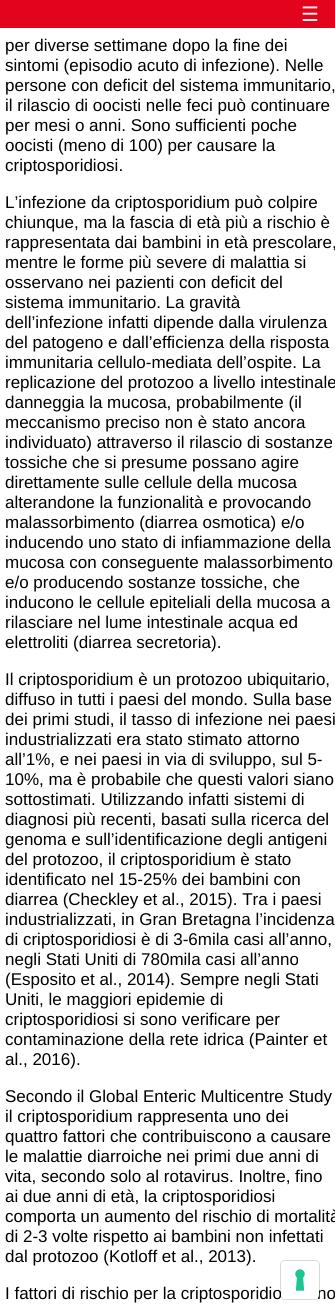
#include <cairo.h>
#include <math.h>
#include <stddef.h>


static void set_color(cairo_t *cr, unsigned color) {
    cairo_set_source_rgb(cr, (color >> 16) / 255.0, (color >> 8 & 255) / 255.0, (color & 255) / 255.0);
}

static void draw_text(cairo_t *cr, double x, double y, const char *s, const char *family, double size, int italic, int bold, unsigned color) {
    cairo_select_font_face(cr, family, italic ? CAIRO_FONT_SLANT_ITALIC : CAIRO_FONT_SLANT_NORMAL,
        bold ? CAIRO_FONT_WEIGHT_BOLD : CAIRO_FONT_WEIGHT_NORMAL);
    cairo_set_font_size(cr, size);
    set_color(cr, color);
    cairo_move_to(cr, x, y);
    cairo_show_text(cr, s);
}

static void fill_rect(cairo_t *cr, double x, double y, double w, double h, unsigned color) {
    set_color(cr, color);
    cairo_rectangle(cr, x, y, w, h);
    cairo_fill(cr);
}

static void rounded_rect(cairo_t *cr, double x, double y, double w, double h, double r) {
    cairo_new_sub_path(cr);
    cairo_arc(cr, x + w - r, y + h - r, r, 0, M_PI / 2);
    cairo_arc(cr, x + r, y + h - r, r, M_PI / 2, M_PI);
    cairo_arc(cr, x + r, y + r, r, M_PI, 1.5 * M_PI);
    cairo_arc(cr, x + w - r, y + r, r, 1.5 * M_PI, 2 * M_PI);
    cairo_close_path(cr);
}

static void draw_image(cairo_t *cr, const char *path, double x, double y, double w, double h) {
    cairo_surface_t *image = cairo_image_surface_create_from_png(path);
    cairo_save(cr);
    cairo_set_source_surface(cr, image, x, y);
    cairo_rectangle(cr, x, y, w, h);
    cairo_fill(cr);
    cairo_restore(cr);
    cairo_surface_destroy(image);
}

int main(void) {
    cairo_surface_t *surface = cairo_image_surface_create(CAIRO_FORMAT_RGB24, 335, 1315);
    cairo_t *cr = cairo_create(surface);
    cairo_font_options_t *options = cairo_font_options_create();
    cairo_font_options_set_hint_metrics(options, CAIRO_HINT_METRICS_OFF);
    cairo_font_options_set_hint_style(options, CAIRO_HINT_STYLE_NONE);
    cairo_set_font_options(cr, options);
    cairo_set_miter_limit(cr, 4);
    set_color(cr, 0xFFFFFF);
    cairo_paint(cr);
    fill_rect(cr, 0, 0, 335, 28, 0xE3031C);
    draw_text(cr, 301, 21, "☰", "DejaVu Sans", 20, 0, 0, 0xF2F2F2);
    draw_text(cr, 5, 51, "per diverse settimane dopo la fine dei", "Liberation Sans", 17, 0, 0, 0x000000);
    draw_text(cr, 5, 71, "sintomi (episodio acuto di infezione). Nelle", "Liberation Sans", 17, 0, 0, 0x000000);
    draw_text(cr, 5, 91, "persone con deficit del sistema immunitario,", "Liberation Sans", 17, 0, 0, 0x000000);
    draw_text(cr, 5, 111, "il rilascio di oocisti nelle feci può continuare", "Liberation Sans", 17, 0, 0, 0x000000);
    draw_text(cr, 5, 131, "per mesi o anni. Sono sufficienti poche", "Liberation Sans", 17, 0, 0, 0x000000);
    draw_text(cr, 5, 151, "oocisti (meno di 100) per causare la", "Liberation Sans", 17, 0, 0, 0x000000);
    draw_text(cr, 5, 171, "criptosporidiosi.", "Liberation Sans", 17, 0, 0, 0x000000);
    draw_text(cr, 5, 208, "L’infezione da criptosporidium può colpire", "Liberation Sans", 17, 0, 0, 0x000000);
    draw_text(cr, 5, 228, "chiunque, ma la fascia di età più a rischio è", "Liberation Sans", 17, 0, 0, 0x000000);
    draw_text(cr, 5, 248, "rappresentata dai bambini in età prescolare,", "Liberation Sans", 17, 0, 0, 0x000000);
    draw_text(cr, 5, 268, "mentre le forme più severe di malattia si", "Liberation Sans", 17, 0, 0, 0x000000);
    draw_text(cr, 5, 288, "osservano nei pazienti con deficit del", "Liberation Sans", 17, 0, 0, 0x000000);
    draw_text(cr, 5, 308, "sistema immunitario. La gravità", "Liberation Sans", 17, 0, 0, 0x000000);
    draw_text(cr, 5, 328, "dell’infezione infatti dipende dalla virulenza", "Liberation Sans", 17, 0, 0, 0x000000);
    draw_text(cr, 5, 348, "del patogeno e dall’efficienza della risposta", "Liberation Sans", 17, 0, 0, 0x000000);
    draw_text(cr, 5, 368, "immunitaria cellulo-mediata dell’ospite. La", "Liberation Sans", 17, 0, 0, 0x000000);
    draw_text(cr, 5, 388, "replicazione del protozoo a livello intestinale", "Liberation Sans", 17, 0, 0, 0x000000);
    draw_text(cr, 5, 408, "danneggia la mucosa, probabilmente (il", "Liberation Sans", 17, 0, 0, 0x000000);
    draw_text(cr, 5, 428, "meccanismo preciso non è stato ancora", "Liberation Sans", 17, 0, 0, 0x000000);
    draw_text(cr, 5, 448, "individuato) attraverso il rilascio di sostanze", "Liberation Sans", 17, 0, 0, 0x000000);
    draw_text(cr, 5, 468, "tossiche che si presume possano agire", "Liberation Sans", 17, 0, 0, 0x000000);
    draw_text(cr, 5, 488, "direttamente sulle cellule della mucosa", "Liberation Sans", 17, 0, 0, 0x000000);
    draw_text(cr, 5, 508, "alterandone la funzionalità e provocando", "Liberation Sans", 17, 0, 0, 0x000000);
    draw_text(cr, 5, 528, "malassorbimento (diarrea osmotica) e/o", "Liberation Sans", 17, 0, 0, 0x000000);
    draw_text(cr, 5, 548, "inducendo uno stato di infiammazione della", "Liberation Sans", 17, 0, 0, 0x000000);
    draw_text(cr, 5, 568, "mucosa con conseguente malassorbimento", "Liberation Sans", 17, 0, 0, 0x000000);
    draw_text(cr, 5, 588, "e/o producendo sostanze tossiche, che", "Liberation Sans", 17, 0, 0, 0x000000);
    draw_text(cr, 5, 608, "inducono le cellule epiteliali della mucosa a", "Liberation Sans", 17, 0, 0, 0x000000);
    draw_text(cr, 5, 628, "rilasciare nel lume intestinale acqua ed", "Liberation Sans", 17, 0, 0, 0x000000);
    draw_text(cr, 5, 648, "elettroliti (diarrea secretoria).", "Liberation Sans", 17, 0, 0, 0x000000);
    draw_text(cr, 5, 685, "Il criptosporidium è un protozoo ubiquitario,", "Liberation Sans", 17, 0, 0, 0x000000);
    draw_text(cr, 5, 705, "diffuso in tutti i paesi del mondo. Sulla base", "Liberation Sans", 17, 0, 0, 0x000000);
    draw_text(cr, 5, 725, "dei primi studi, il tasso di infezione nei paesi", "Liberation Sans", 17, 0, 0, 0x000000);
    draw_text(cr, 5, 745, "industrializzati era stato stimato attorno", "Liberation Sans", 17, 0, 0, 0x000000);
    draw_text(cr, 5, 765, "all’1%, e nei paesi in via di sviluppo, sul 5-", "Liberation Sans", 17, 0, 0, 0x000000);
    draw_text(cr, 5, 785, "10%, ma è probabile che questi valori siano", "Liberation Sans", 17, 0, 0, 0x000000);
    draw_text(cr, 5, 805, "sottostimati. Utilizzando infatti sistemi di", "Liberation Sans", 17, 0, 0, 0x000000);
    draw_text(cr, 5, 825, "diagnosi più recenti, basati sulla ricerca del", "Liberation Sans", 17, 0, 0, 0x000000);
    draw_text(cr, 5, 845, "genoma e sull’identificazione degli antigeni", "Liberation Sans", 17, 0, 0, 0x000000);
    draw_text(cr, 5, 865, "del protozoo, il criptosporidium è stato", "Liberation Sans", 17, 0, 0, 0x000000);
    draw_text(cr, 5, 885, "identificato nel 15-25% dei bambini con", "Liberation Sans", 17, 0, 0, 0x000000);
    draw_text(cr, 5, 905, "diarrea (Checkley et al., 2015). Tra i paesi", "Liberation Sans", 17, 0, 0, 0x000000);
    draw_text(cr, 5, 925, "industrializzati, in Gran Bretagna l’incidenza", "Liberation Sans", 17, 0, 0, 0x000000);
    draw_text(cr, 5, 945, "di criptosporidiosi è di 3-6mila casi all’anno,", "Liberation Sans", 17, 0, 0, 0x000000);
    draw_text(cr, 5, 965, "negli Stati Uniti di 780mila casi all’anno", "Liberation Sans", 17, 0, 0, 0x000000);
    draw_text(cr, 5, 985, "(Esposito et al., 2014). Sempre negli Stati", "Liberation Sans", 17, 0, 0, 0x000000);
    draw_text(cr, 5, 1005, "Uniti, le maggiori epidemie di", "Liberation Sans", 17, 0, 0, 0x000000);
    draw_text(cr, 5, 1025, "criptosporidiosi si sono verificare per", "Liberation Sans", 17, 0, 0, 0x000000);
    draw_text(cr, 5, 1045, "contaminazione della rete idrica (Painter et", "Liberation Sans", 17, 0, 0, 0x000000);
    draw_text(cr, 5, 1065, "al., 2016).", "Liberation Sans", 17, 0, 0, 0x000000);
    draw_text(cr, 5, 1102, "Secondo il Global Enteric Multicentre Study", "Liberation Sans", 17, 0, 0, 0x000000);
    draw_text(cr, 5, 1122, "il criptosporidium rappresenta uno dei", "Liberation Sans", 17, 0, 0, 0x000000);
    draw_text(cr, 5, 1142, "quattro fattori che contribuiscono a causare", "Liberation Sans", 17, 0, 0, 0x000000);
    draw_text(cr, 5, 1162, "le malattie diarroiche nei primi due anni di", "Liberation Sans", 17, 0, 0, 0x000000);
    draw_text(cr, 5, 1182, "vita, secondo solo al rotavirus. Inoltre, fino", "Liberation Sans", 17, 0, 0, 0x000000);
    draw_text(cr, 5, 1202, "ai due anni di età, la criptosporidiosi", "Liberation Sans", 17, 0, 0, 0x000000);
    draw_text(cr, 5, 1222, "comporta un aumento del rischio di mortalità", "Liberation Sans", 17, 0, 0, 0x000000);
    draw_text(cr, 5, 1242, "di 2-3 volte rispetto ai bambini non infettati", "Liberation Sans", 17, 0, 0, 0x000000);
    draw_text(cr, 5, 1262, "dal protozoo (Kotloff et al., 2013).", "Liberation Sans", 17, 0, 0, 0x000000);
    draw_text(cr, 5, 1299, "I fattori di rischio per la criptosporidio", "Liberation Sans", 17, 0, 0, 0x000000);
    draw_text(cr, 317, 1299, "no", "Liberation Sans", 17, 0, 0, 0x000000);
    rounded_rect(cr, 280.5, 1260.5, 39, 39, 4.5);
    cairo_set_source_rgba(cr, 0, 0, 0, 0.15);
    cairo_set_line_width(cr, 1);
    cairo_stroke(cr);
    set_color(cr, 0xFFFFFF);
    rounded_rect(cr, 281, 1261, 38, 38, 4);
    cairo_fill(cr);
    draw_image(cr, "assets/img1.png", 295, 1269, 10, 22);
    cairo_surface_write_to_png(surface, "output.png");
    cairo_font_options_destroy(options);
    cairo_destroy(cr);
    cairo_surface_destroy(surface);
    return 0;
}
